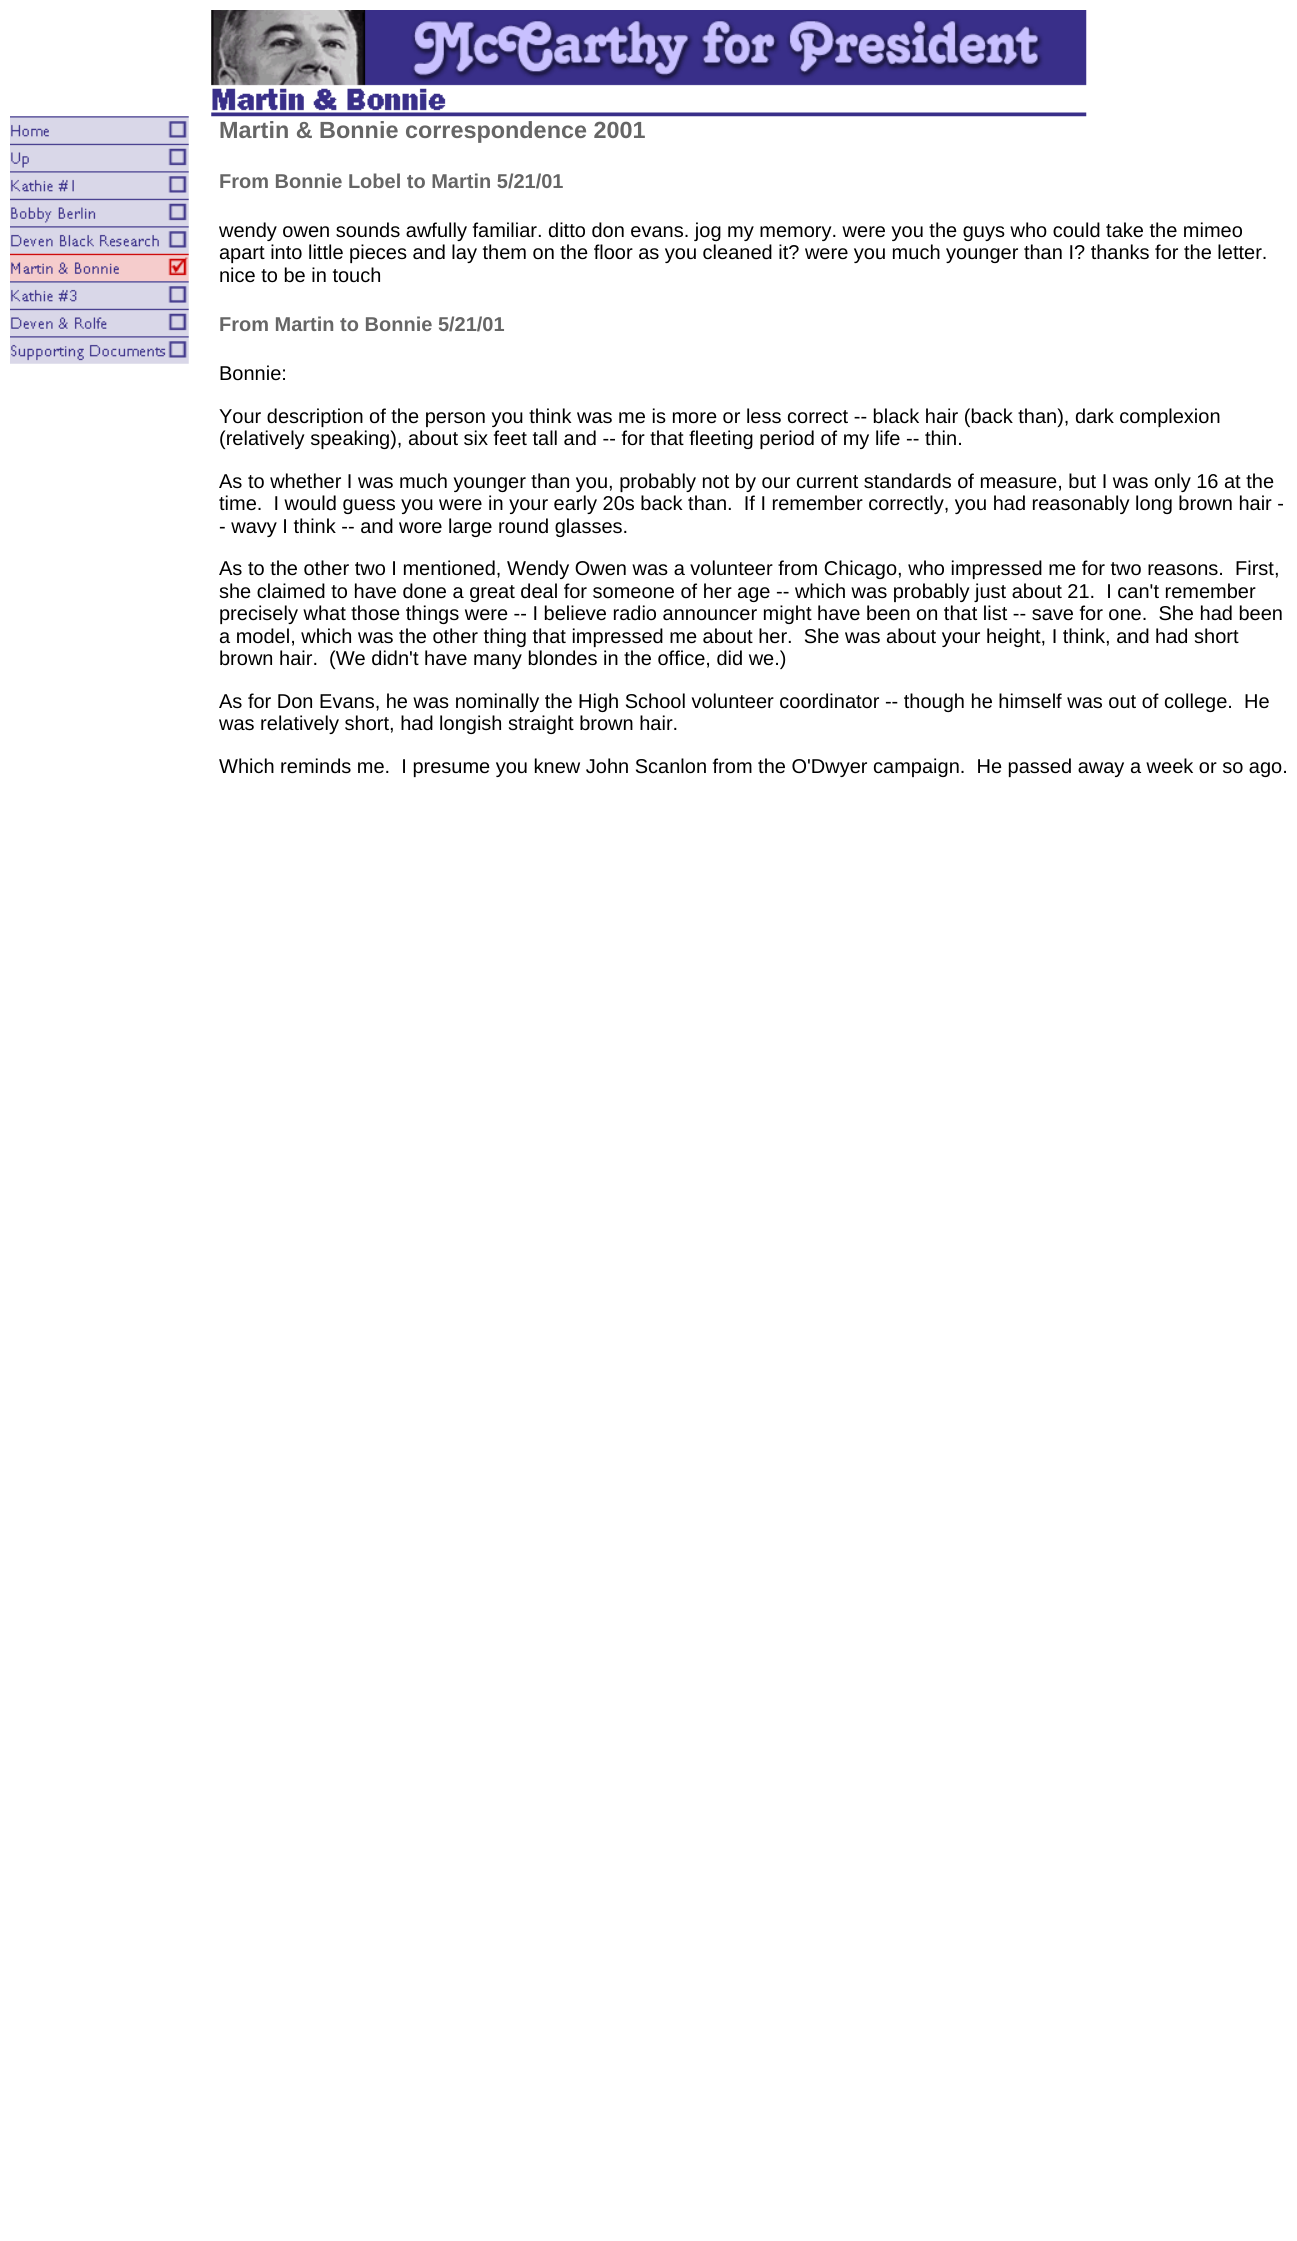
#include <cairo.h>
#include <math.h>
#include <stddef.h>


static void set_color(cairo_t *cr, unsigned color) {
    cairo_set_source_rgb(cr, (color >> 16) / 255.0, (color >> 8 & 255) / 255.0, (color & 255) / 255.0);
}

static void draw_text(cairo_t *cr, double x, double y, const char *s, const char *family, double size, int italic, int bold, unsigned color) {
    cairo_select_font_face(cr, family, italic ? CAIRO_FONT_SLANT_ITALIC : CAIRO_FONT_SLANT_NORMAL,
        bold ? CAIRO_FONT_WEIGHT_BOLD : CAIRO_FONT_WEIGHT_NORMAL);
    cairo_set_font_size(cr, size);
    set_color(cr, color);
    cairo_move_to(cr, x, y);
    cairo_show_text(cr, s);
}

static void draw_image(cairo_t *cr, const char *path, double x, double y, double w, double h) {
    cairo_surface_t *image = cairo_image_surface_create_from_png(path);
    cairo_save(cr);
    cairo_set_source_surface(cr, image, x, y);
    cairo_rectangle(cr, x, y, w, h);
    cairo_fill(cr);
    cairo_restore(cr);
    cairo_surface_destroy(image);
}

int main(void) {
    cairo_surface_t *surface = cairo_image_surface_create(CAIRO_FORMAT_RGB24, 1297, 2241);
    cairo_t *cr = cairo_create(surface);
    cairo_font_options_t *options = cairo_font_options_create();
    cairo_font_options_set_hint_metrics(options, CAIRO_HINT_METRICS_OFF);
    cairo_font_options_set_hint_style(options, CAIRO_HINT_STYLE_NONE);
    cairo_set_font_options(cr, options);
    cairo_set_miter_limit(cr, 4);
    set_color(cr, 0xFFFFFF);
    cairo_paint(cr);
    draw_image(cr, "assets/img1.png", 211, 10, 876, 107);
    draw_image(cr, "assets/img2.png", 10, 116, 179, 28);
    draw_image(cr, "assets/img3.png", 10, 143, 179, 29);
    draw_image(cr, "assets/img4.png", 10, 171, 179, 28);
    draw_image(cr, "assets/img5.png", 10, 198, 179, 29);
    draw_image(cr, "assets/img6.png", 10, 226, 179, 28);
    draw_image(cr, "assets/img7.png", 10, 253, 179, 29);
    draw_image(cr, "assets/img8.png", 10, 281, 179, 28);
    draw_image(cr, "assets/img9.png", 10, 308, 179, 29);
    draw_image(cr, "assets/img10.png", 10, 336, 179, 28);
    draw_text(cr, 219, 138, "Martin & Bonnie correspondence 2001", "Liberation Sans", 23.4, 0, 1, 0x666666);
    draw_text(cr, 219, 188, "From Bonnie Lobel to Martin 5/21/01", "Liberation Sans", 20, 0, 1, 0x666666);
    draw_text(cr, 219, 237, "wendy owen sounds awfully familiar. ditto don evans. jog my memory. were you the guys who could take the mimeo", "Liberation Sans", 20, 0, 0, 0x000000);
    draw_text(cr, 219, 259, "apart into little pieces and lay them on the floor as you cleaned it? were you much younger than I? thanks for the letter.", "Liberation Sans", 20, 0, 0, 0x000000);
    draw_text(cr, 219, 282, "nice to be in touch", "Liberation Sans", 20, 0, 0, 0x000000);
    draw_text(cr, 219, 331, "From Martin to Bonnie 5/21/01", "Liberation Sans", 20, 0, 1, 0x666666);
    draw_text(cr, 219, 380, "Bonnie:", "Liberation Sans", 20, 0, 0, 0x000000);
    draw_text(cr, 219, 423, "Your description of the person you think was me is more or less correct -- black hair (back than), dark complexion", "Liberation Sans", 20, 0, 0, 0x000000);
    draw_text(cr, 219, 445, "(relatively speaking), about six feet tall and -- for that fleeting period of my life -- thin.", "Liberation Sans", 20, 0, 0, 0x000000);
    draw_text(cr, 219, 488, "As to whether I was much younger than you, probably not by our current standards of measure, but I was only 16 at the", "Liberation Sans", 20, 0, 0, 0x000000);
    draw_text(cr, 219, 510, "time.  I would guess you were in your early 20s back than.  If I remember correctly, you had reasonably long brown hair -", "Liberation Sans", 20, 0, 0, 0x000000);
    draw_text(cr, 219, 533, "- wavy I think -- and wore large round glasses.", "Liberation Sans", 20, 0, 0, 0x000000);
    draw_text(cr, 219, 575, "As to the other two I mentioned, Wendy Owen was a volunteer from Chicago, who impressed me for two reasons.  First,", "Liberation Sans", 20, 0, 0, 0x000000);
    draw_text(cr, 219, 598, "she claimed to have done a great deal for someone of her age -- which was probably just about 21.  I can't remember", "Liberation Sans", 20, 0, 0, 0x000000);
    draw_text(cr, 219, 620, "precisely what those things were -- I believe radio announcer might have been on that list -- save for one.  She had been", "Liberation Sans", 20, 0, 0, 0x000000);
    draw_text(cr, 219, 643, "a model, which was the other thing that impressed me about her.  She was about your height, I think, and had short", "Liberation Sans", 20, 0, 0, 0x000000);
    draw_text(cr, 219, 665, "brown hair.  (We didn't have many blondes in the office, did we.)", "Liberation Sans", 20, 0, 0, 0x000000);
    draw_text(cr, 219, 708, "As for Don Evans, he was nominally the High School volunteer coordinator -- though he himself was out of college.  He", "Liberation Sans", 20, 0, 0, 0x000000);
    draw_text(cr, 219, 730, "was relatively short, had longish straight brown hair.", "Liberation Sans", 20, 0, 0, 0x000000);
    draw_text(cr, 219, 773, "Which reminds me.  I presume you knew John Scanlon from the O'Dwyer campaign.  He passed away a week or so ago.", "Liberation Sans", 20, 0, 0, 0x000000);
    cairo_surface_write_to_png(surface, "output.png");
    cairo_font_options_destroy(options);
    cairo_destroy(cr);
    cairo_surface_destroy(surface);
    return 0;
}
